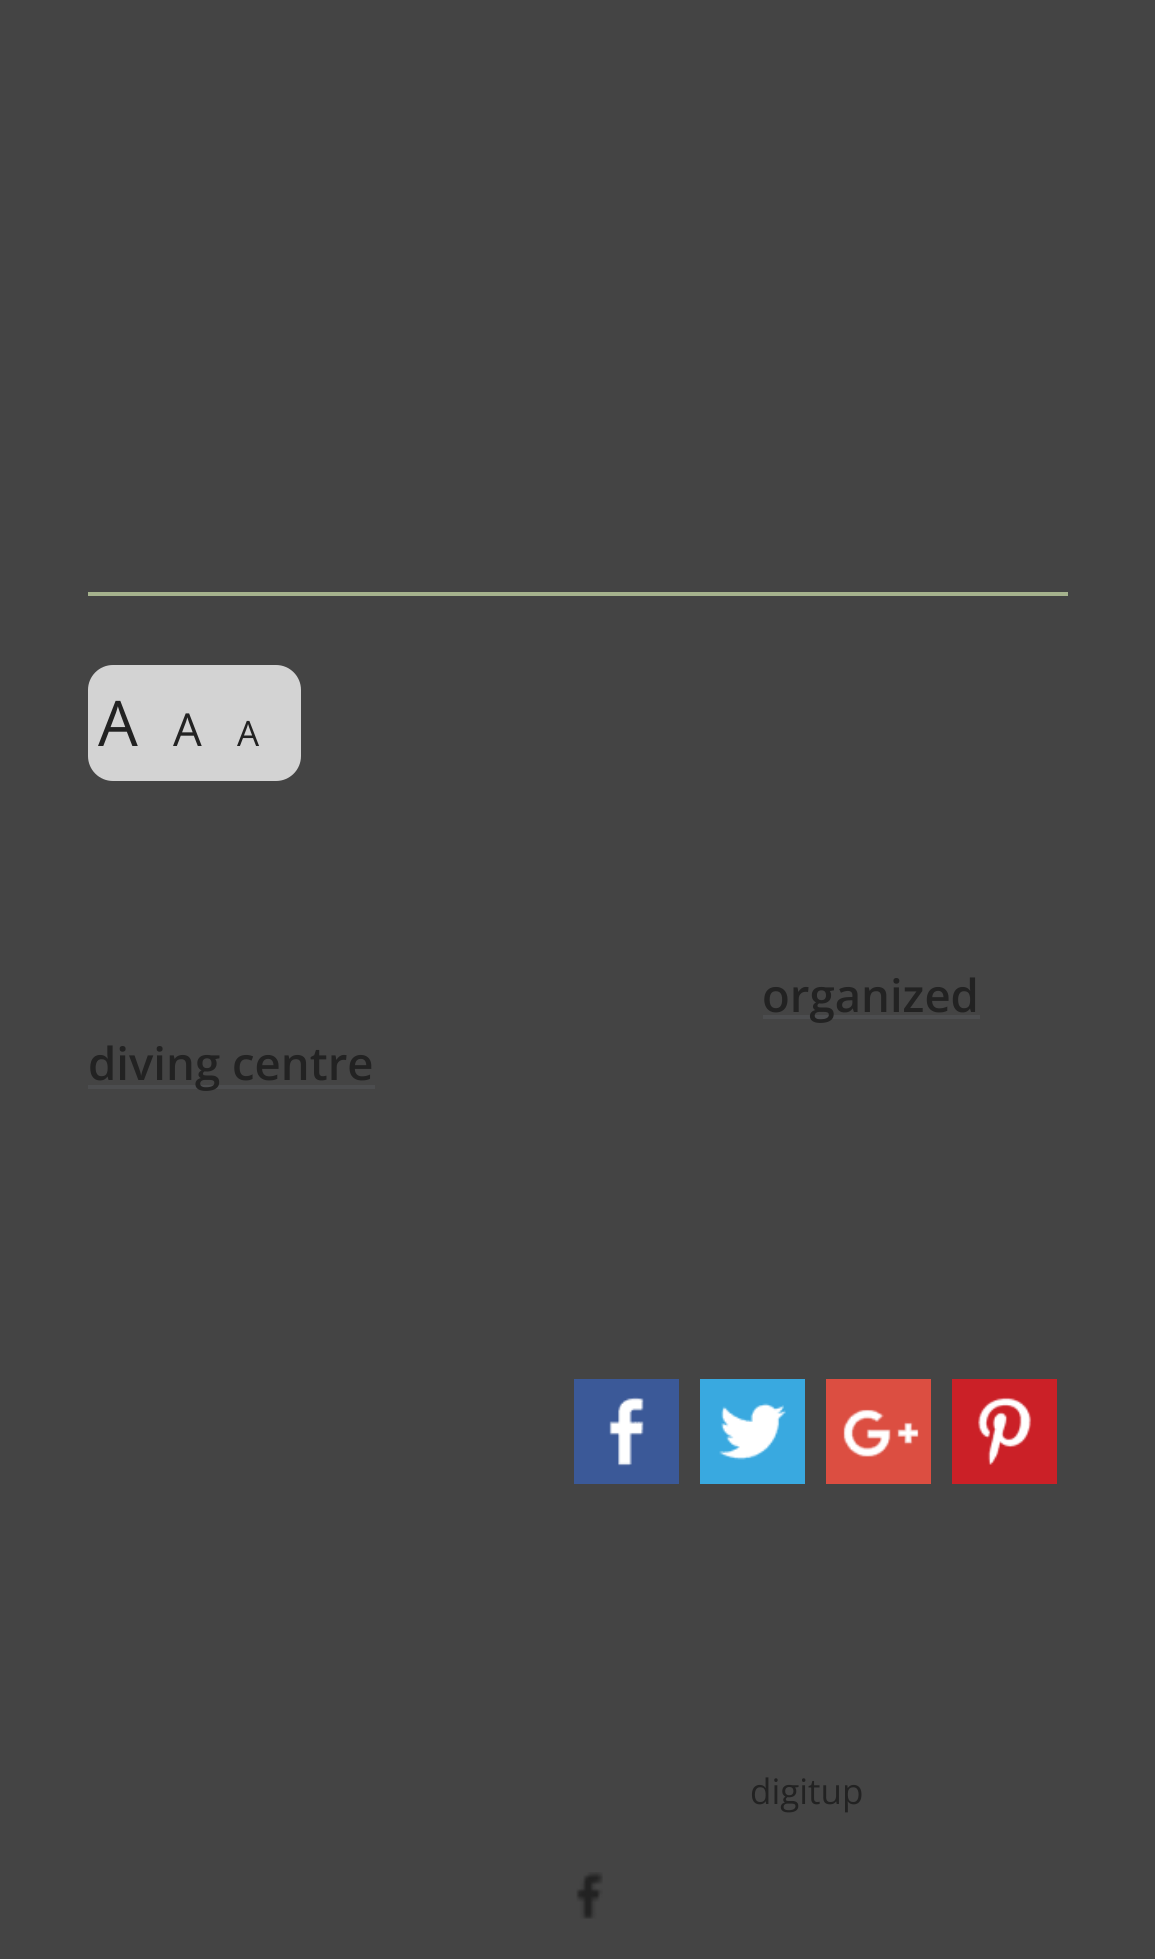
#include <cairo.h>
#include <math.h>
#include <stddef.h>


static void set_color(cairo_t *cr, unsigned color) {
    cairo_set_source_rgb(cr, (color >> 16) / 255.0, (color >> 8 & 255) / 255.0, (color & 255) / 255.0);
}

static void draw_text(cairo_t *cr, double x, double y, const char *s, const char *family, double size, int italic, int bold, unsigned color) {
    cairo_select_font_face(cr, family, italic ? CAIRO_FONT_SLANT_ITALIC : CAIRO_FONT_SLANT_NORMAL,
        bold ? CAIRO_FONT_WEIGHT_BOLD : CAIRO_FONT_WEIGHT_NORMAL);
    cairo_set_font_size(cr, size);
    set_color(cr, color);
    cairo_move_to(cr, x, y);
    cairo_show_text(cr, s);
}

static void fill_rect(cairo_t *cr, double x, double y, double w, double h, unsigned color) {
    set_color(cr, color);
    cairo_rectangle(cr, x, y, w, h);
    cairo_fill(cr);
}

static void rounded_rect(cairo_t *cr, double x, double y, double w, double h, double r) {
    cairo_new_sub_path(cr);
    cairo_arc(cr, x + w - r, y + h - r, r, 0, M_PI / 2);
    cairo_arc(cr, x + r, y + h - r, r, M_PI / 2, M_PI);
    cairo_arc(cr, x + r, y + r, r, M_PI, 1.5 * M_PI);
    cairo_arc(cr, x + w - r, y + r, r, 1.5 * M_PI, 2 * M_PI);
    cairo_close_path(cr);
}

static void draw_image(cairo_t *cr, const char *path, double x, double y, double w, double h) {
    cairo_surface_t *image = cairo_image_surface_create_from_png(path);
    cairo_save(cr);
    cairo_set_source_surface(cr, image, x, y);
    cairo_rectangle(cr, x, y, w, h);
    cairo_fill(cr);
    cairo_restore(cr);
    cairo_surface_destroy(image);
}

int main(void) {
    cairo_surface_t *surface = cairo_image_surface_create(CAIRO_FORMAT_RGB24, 1155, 1959);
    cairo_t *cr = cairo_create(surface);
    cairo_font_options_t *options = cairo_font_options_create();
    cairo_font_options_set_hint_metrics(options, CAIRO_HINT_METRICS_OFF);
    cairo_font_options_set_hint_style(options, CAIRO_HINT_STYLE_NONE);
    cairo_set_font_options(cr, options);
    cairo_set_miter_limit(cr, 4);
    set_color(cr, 0x444444);
    cairo_paint(cr);
    fill_rect(cr, 88, 592, 980, 4, 0xA5B28D);
    set_color(cr, 0xD3D3D3);
    rounded_rect(cr, 88, 665, 213, 116, 25);
    cairo_fill(cr);
    draw_text(cr, 98, 746, "A", "Open Sans", 63, 0, 0, 0x222222);
    draw_text(cr, 173, 746, "A", "Open Sans", 45.5, 0, 0, 0x222222);
    draw_text(cr, 237, 746, "A", "Open Sans", 35, 0, 0, 0x222222);
    fill_rect(cr, 763, 1015, 217, 4, 0x4C4D4F);
    draw_text(cr, 762, 1012, "οrganized", "Open Sans SemiBold", 45.5, 0, 0, 0x222222);
    fill_rect(cr, 88, 1085, 287, 4, 0x4C4D4F);
    draw_text(cr, 88, 1080, "diving centre", "Open Sans SemiBold", 45.5, 0, 0, 0x222222);
    draw_image(cr, "assets/img1.png", 574, 1379, 105, 105);
    draw_image(cr, "assets/img2.png", 700, 1379, 105, 105);
    draw_image(cr, "assets/img3.png", 826, 1379, 105, 105);
    draw_image(cr, "assets/img4.png", 952, 1379, 105, 105);
    draw_text(cr, 750, 1804, "digitup", "Open Sans", 35, 0, 0, 0x222222);
    draw_image(cr, "assets/img5.png", 576, 1872, 27, 47);
    cairo_surface_write_to_png(surface, "output.png");
    cairo_font_options_destroy(options);
    cairo_destroy(cr);
    cairo_surface_destroy(surface);
    return 0;
}
